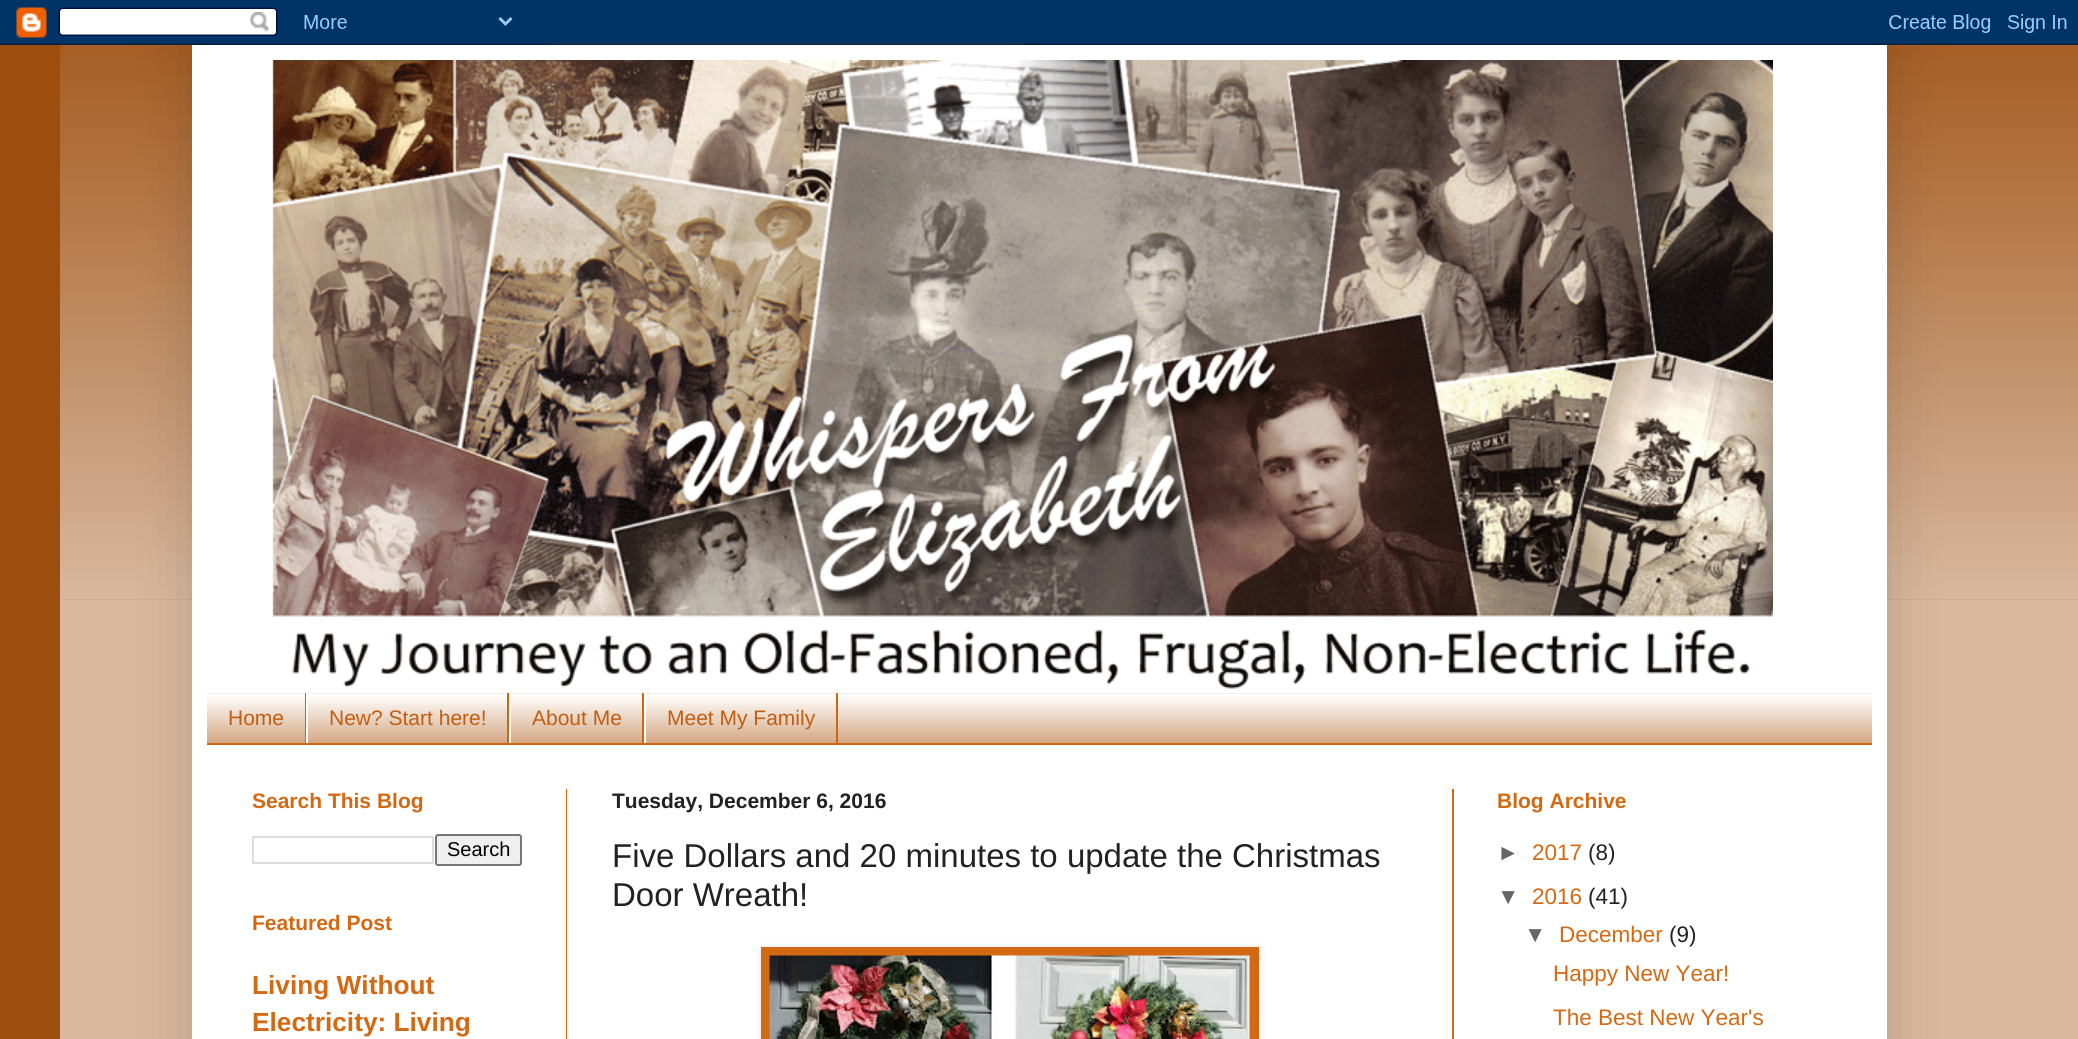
#include <cairo.h>
#include <math.h>
#include <stddef.h>


static void set_color(cairo_t *cr, unsigned color) {
    cairo_set_source_rgb(cr, (color >> 16) / 255.0, (color >> 8 & 255) / 255.0, (color & 255) / 255.0);
}

static void draw_text(cairo_t *cr, double x, double y, const char *s, const char *family, double size, int italic, int bold, unsigned color) {
    cairo_select_font_face(cr, family, italic ? CAIRO_FONT_SLANT_ITALIC : CAIRO_FONT_SLANT_NORMAL,
        bold ? CAIRO_FONT_WEIGHT_BOLD : CAIRO_FONT_WEIGHT_NORMAL);
    cairo_set_font_size(cr, size);
    set_color(cr, color);
    cairo_move_to(cr, x, y);
    cairo_show_text(cr, s);
}

static void fill_rect(cairo_t *cr, double x, double y, double w, double h, unsigned color) {
    set_color(cr, color);
    cairo_rectangle(cr, x, y, w, h);
    cairo_fill(cr);
}

static void rounded_rect(cairo_t *cr, double x, double y, double w, double h, double r) {
    cairo_new_sub_path(cr);
    cairo_arc(cr, x + w - r, y + h - r, r, 0, M_PI / 2);
    cairo_arc(cr, x + r, y + h - r, r, M_PI / 2, M_PI);
    cairo_arc(cr, x + r, y + r, r, M_PI, 1.5 * M_PI);
    cairo_arc(cr, x + w - r, y + r, r, 1.5 * M_PI, 2 * M_PI);
    cairo_close_path(cr);
}

static void draw_shadow(cairo_t *cr, double x, double y, double w, double h, double r, double blur, double alpha) {
    cairo_push_group_with_content(cr, CAIRO_CONTENT_ALPHA);
    cairo_set_operator(cr, CAIRO_OPERATOR_SOURCE);
    for (int i = 15; i >= -15 && fmin(w, h) + blur * i / 3 > 0; i -= 2) {
        double e = blur * i / 6;
        cairo_set_source_rgba(cr, 0, 0, 0, alpha * erfc((i - 1) / 8.5) / 2);
        rounded_rect(cr, x - e, y - e, w + 2 * e, h + 2 * e, fmax(0, fmin(r + e + blur * .6, fmin(w, h) / 2 + e)));
        cairo_fill(cr);
    }
    cairo_pattern_t *soft = cairo_pop_group(cr);
    cairo_mask(cr, soft);
    cairo_pattern_destroy(soft);
}

static void draw_image(cairo_t *cr, const char *path, double x, double y, double w, double h) {
    cairo_surface_t *image = cairo_image_surface_create_from_png(path);
    cairo_save(cr);
    cairo_set_source_surface(cr, image, x, y);
    cairo_rectangle(cr, x, y, w, h);
    cairo_fill(cr);
    cairo_restore(cr);
    cairo_surface_destroy(image);
}

int main(void) {
    cairo_surface_t *surface = cairo_image_surface_create(CAIRO_FORMAT_RGB24, 2078, 1039);
    cairo_t *cr = cairo_create(surface);
    cairo_font_options_t *options = cairo_font_options_create();
    cairo_font_options_set_hint_metrics(options, CAIRO_HINT_METRICS_OFF);
    cairo_font_options_set_hint_style(options, CAIRO_HINT_STYLE_NONE);
    cairo_set_font_options(cr, options);
    cairo_set_miter_limit(cr, 4);
    set_color(cr, 0x9D4D0D);
    cairo_paint(cr);
    draw_image(cr, "assets/img2.png", 60, 43, 2018, 557);
    fill_rect(cr, 60, 600, 2018, 439, 0xD9B89E);
    set_color(cr, 0x000000);
    draw_shadow(cr, 192, 45, 1695, 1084, 0, 30, 0.15);
    draw_image(cr, "assets/img1.png", 0, 0, 2078, 45);
    fill_rect(cr, 192, 45, 1695, 994, 0xFFFFFF);
    draw_image(cr, "assets/img3.png", 272, 60, 1501, 629);
    fill_rect(cr, 207, 693, 1665, 50, 0xCC986E);
    draw_image(cr, "assets/img4.png", 207, 693, 1665, 50);
    fill_rect(cr, 207, 743, 1665, 2, 0xCC6611);
    fill_rect(cr, 305, 693, 1, 50, 0xCC6611);
    draw_text(cr, 228, 725, "Home", "Liberation Sans", 21, 0, 0, 0xC15E11);
    fill_rect(cr, 507, 693, 2, 50, 0xCC6611);
    fill_rect(cr, 306, 693, 2, 50, 0xFFFFFF);
    draw_text(cr, 329, 725, "New? Start here!", "Liberation Sans", 21, 0, 0, 0xC15E11);
    fill_rect(cr, 642, 693, 2, 50, 0xCC6611);
    fill_rect(cr, 509, 693, 2, 50, 0xFFFFFF);
    draw_text(cr, 532, 725, "About Me", "Liberation Sans", 21, 0, 0, 0xC15E11);
    fill_rect(cr, 836, 693, 2, 50, 0xCC6611);
    fill_rect(cr, 644, 693, 2, 50, 0xFFFFFF);
    draw_text(cr, 667, 725, "Meet My Family", "Liberation Sans", 21, 0, 0, 0xC15E11);
    fill_rect(cr, 566, 789, 1, 250, 0xD46913);
    fill_rect(cr, 1452, 789, 2, 250, 0xD46913);
    draw_text(cr, 252, 808, "Search This Blog", "Liberation Sans", 21, 0, 1, 0xD46913);
    cairo_rectangle(cr, 253, 837, 180, 26);
    set_color(cr, 0xDDDDDD);
    cairo_stroke(cr);
    set_color(cr, 0xEFEFEF);
    rounded_rect(cr, 436, 835, 85, 30, 2);
    cairo_fill_preserve(cr);
    set_color(cr, 0x767676);
    cairo_stroke(cr);
    draw_text(cr, 447, 856, "Search", "Liberation Sans", 20, 0, 0, 0x000000);
    draw_text(cr, 252, 930, "Featured Post", "Liberation Sans", 21, 0, 1, 0xD46913);
    draw_text(cr, 252, 994, "Living Without", "Liberation Sans", 26.25, 0, 1, 0xD46913);
    draw_text(cr, 252, 1031, "Electricity: Living", "Liberation Sans", 26.25, 0, 1, 0xD46913);
    draw_text(cr, 612, 808, "Tuesday, December 6, 2016", "Liberation Sans", 21, 0, 1, 0x222222);
    draw_text(cr, 612, 867, "Five Dollars and 20 minutes to update the Christmas", "Liberation Sans", 33, 0, 0, 0x222222);
    draw_text(cr, 612, 906, "Door Wreath!", "Liberation Sans", 33, 0, 0, 0x222222);
    set_color(cr, 0x000000);
    draw_shadow(cr, 762, 948, 498, 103, 0, 4, 0.1);
    fill_rect(cr, 761, 947, 498, 92, 0xD46913);
    draw_image(cr, "assets/img5.png", 769, 955, 481, 84);
    draw_text(cr, 1497, 808, "Blog Archive", "Liberation Sans", 21, 0, 1, 0xD46913);
    draw_text(cr, 1497, 860, "►", "Liberation Sans", 22.5, 0, 0, 0x666666);
    draw_text(cr, 1532, 860, "2017", "Liberation Sans", 22.5, 0, 0, 0xD46913);
    draw_text(cr, 1588, 860, "(8)", "Liberation Sans", 22.5, 0, 0, 0x222222);
    draw_text(cr, 1497, 904, "▼", "Liberation Sans", 22.5, 0, 0, 0x666666);
    draw_text(cr, 1532, 904, "2016", "Liberation Sans", 22.5, 0, 0, 0xD46913);
    draw_text(cr, 1588, 904, "(41)", "Liberation Sans", 22.5, 0, 0, 0x222222);
    draw_text(cr, 1524, 942, "▼", "Liberation Sans", 22.5, 0, 0, 0x666666);
    draw_text(cr, 1559, 942, "December", "Liberation Sans", 22.5, 0, 0, 0xD46913);
    draw_text(cr, 1669, 942, "(9)", "Liberation Sans", 22.5, 0, 0, 0x222222);
    draw_text(cr, 1553, 981, "Happy New Year!", "Liberation Sans", 22.5, 0, 0, 0xD46913);
    draw_text(cr, 1553, 1025, "The Best New Year's", "Liberation Sans", 22.5, 0, 0, 0xD46913);
    cairo_surface_write_to_png(surface, "output.png");
    cairo_font_options_destroy(options);
    cairo_destroy(cr);
    cairo_surface_destroy(surface);
    return 0;
}
